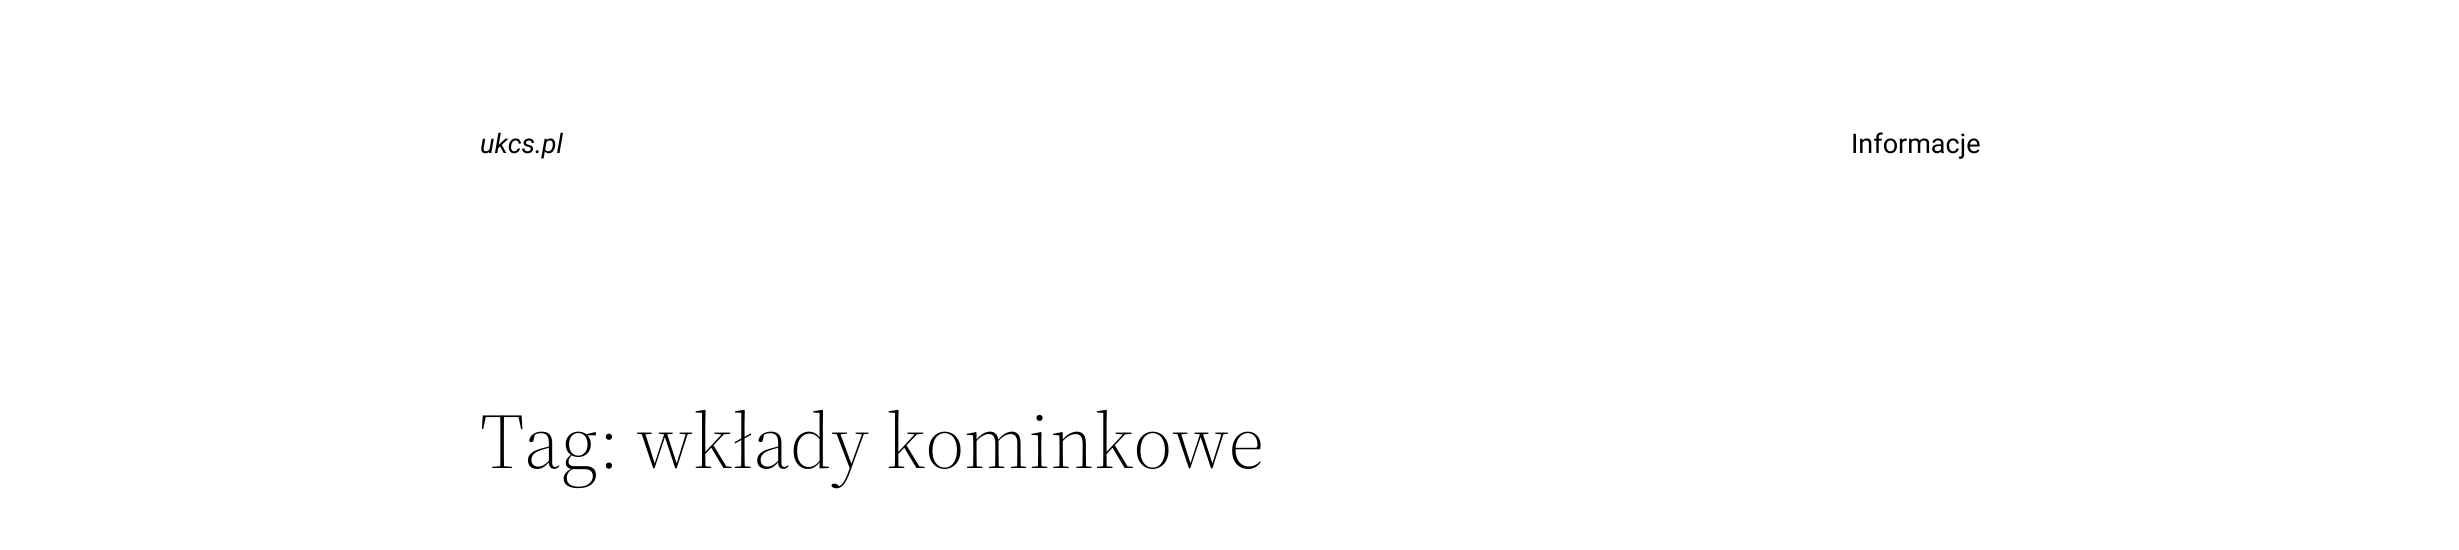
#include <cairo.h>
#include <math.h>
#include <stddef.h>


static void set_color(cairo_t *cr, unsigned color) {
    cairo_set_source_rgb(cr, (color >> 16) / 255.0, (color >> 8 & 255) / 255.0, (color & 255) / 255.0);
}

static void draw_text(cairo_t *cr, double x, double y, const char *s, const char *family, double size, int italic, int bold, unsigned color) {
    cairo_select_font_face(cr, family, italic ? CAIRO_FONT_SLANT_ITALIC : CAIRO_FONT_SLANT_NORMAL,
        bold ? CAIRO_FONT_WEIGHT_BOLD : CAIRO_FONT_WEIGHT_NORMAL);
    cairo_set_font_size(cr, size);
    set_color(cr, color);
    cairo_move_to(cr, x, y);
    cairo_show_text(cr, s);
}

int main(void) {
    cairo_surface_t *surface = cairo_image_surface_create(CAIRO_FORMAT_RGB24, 2459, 550);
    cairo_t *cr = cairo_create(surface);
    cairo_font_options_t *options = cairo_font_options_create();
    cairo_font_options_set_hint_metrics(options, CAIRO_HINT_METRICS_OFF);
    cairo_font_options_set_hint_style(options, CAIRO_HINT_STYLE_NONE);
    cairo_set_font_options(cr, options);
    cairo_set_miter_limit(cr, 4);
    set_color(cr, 0xFFFFFF);
    cairo_paint(cr);
    draw_text(cr, 480, 153, "ukcs.pl", "Roboto", 27, 1, 0, 0x000000);
    draw_text(cr, 1851, 153, "Informacje", "Roboto", 27, 0, 0, 0x000000);
    draw_text(cr, 480, 468, "Tag: wkłady kominkowe", "Source Serif 4 Light", 78, 0, 0, 0x000000);
    cairo_surface_write_to_png(surface, "output.png");
    cairo_font_options_destroy(options);
    cairo_destroy(cr);
    cairo_surface_destroy(surface);
    return 0;
}
